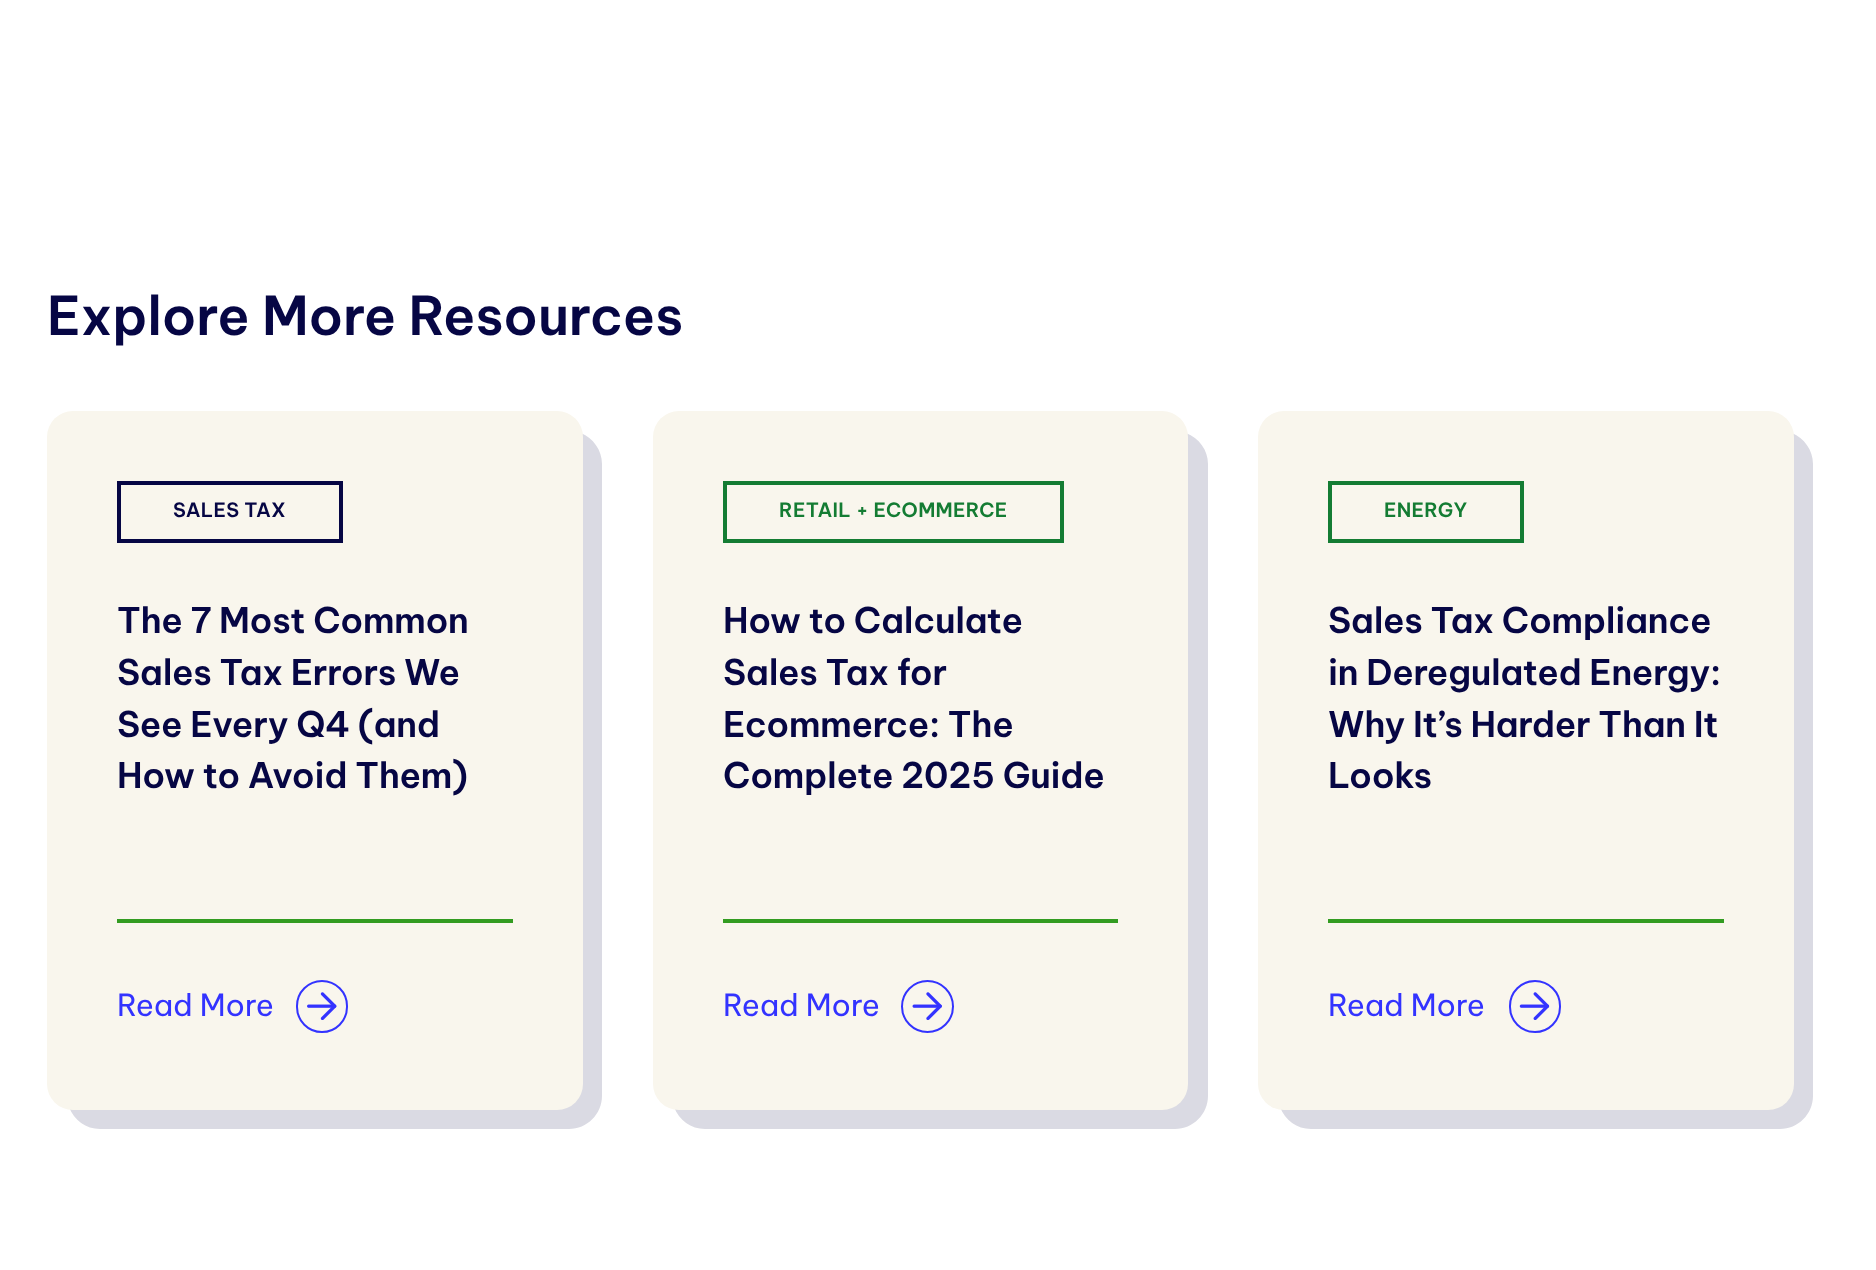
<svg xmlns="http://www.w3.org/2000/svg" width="1876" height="1270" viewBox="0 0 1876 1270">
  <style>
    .t1 { font: 600 53.25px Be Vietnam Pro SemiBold; fill: #060644; }
    .t2 { font: 600 19.6px Be Vietnam Pro SemiBold; letter-spacing: 0.3px; fill: #060644; }
    .t3 { font: 600 35.25px Be Vietnam Pro SemiBold; letter-spacing: -0.25px; fill: #060644; }
    .t4 { font: 30.25px Be Vietnam Pro; fill: #33f; }
    .t5 { font: 600 19.6px Be Vietnam Pro SemiBold; letter-spacing: 0.3px; fill: #147c33; }
  </style>
  <rect width="100%" height="100%" fill="#fff"/>
  <text x="47" y="335" class="t1">Explore More Resources</text>
  <path d="M69 1107C74 1120 86 1129 100 1129H569C587 1129 602 1114 602 1096V464C602 450 593 438 581 433C582 437 583 441 583 444V1076C583 1095 568 1110 550 1110H80C76 1110 73 1109 69 1107Z" fill="#dadae3"/>
  <rect x="47" y="411" width="536" height="699" rx="26" fill="#f9f6ed"/>
  <rect x="119" y="483" width="222" height="58" fill="none" stroke="#060644" stroke-width="4"/>
  <text x="173" y="517" class="t2">SALES TAX</text>
  <text x="117" y="633" class="t3">The 7 Most Common</text>
  <text x="117" y="685" class="t3">Sales Tax Errors We</text>
  <text x="117" y="737" class="t3">See Every Q4 (and</text>
  <text x="117" y="788" class="t3">How to Avoid Them)</text>
  <rect x="117" y="919" width="396" height="4" fill="#339c21"/>
  <text x="117" y="1016" class="t4">Read More</text>
  <rect x="297" y="981" width="50" height="51" rx="25" fill="none" stroke="#33f" stroke-width="2"/>
  <image x="307" y="992" width="30" height="28" href="images/1.png"/>
  <path d="M674 1107C679 1120 691 1129 705 1129H1175C1193 1129 1208 1114 1208 1096V464C1208 450 1199 438 1186 433C1188 437 1188 440 1188 444V1076C1188 1095 1173 1110 1155 1110H686C682 1110 678 1109 674 1107Z" fill="#dadae3"/>
  <rect x="653" y="411" width="535" height="699" rx="26" fill="#f9f6ed"/>
  <rect x="725" y="483" width="337" height="58" fill="none" stroke="#147c33" stroke-width="4"/>
  <text x="779" y="517" class="t5">RETAIL + ECOMMERCE</text>
  <text x="723" y="633" class="t3">How to Calculate</text>
  <text x="723" y="685" class="t3">Sales Tax for</text>
  <text x="723" y="737" class="t3">Ecommerce: The</text>
  <text x="723" y="788" class="t3">Complete 2025 Guide</text>
  <rect x="723" y="919" width="395" height="4" fill="#339c21"/>
  <text x="723" y="1016" class="t4">Read More</text>
  <circle cx="927.5" cy="1006.5" r="25.5" fill="none" stroke="#33f" stroke-width="2"/>
  <image x="912" y="992" width="30" height="28" href="images/2.png"/>
  <path d="M1280 1107C1285 1120 1297 1129 1311 1129H1780C1798 1129 1813 1114 1813 1096V464C1813 450 1804 438 1792 433C1793 437 1794 441 1794 444V1076C1794 1095 1779 1110 1760 1110H1292C1287 1110 1284 1109 1280 1107Z" fill="#dadae3"/>
  <rect x="1258" y="411" width="536" height="699" rx="26" fill="#f9f6ed"/>
  <rect x="1330" y="483" width="192" height="58" fill="none" stroke="#147c33" stroke-width="4"/>
  <text x="1384" y="517" class="t5">ENERGY</text>
  <text x="1328" y="633" class="t3">Sales Tax Compliance</text>
  <text x="1328" y="685" class="t3">in Deregulated Energy:</text>
  <text x="1328" y="737" class="t3">Why It’s Harder Than It</text>
  <text x="1328" y="788" class="t3">Looks</text>
  <rect x="1328" y="919" width="396" height="4" fill="#339c21"/>
  <text x="1328" y="1016" class="t4">Read More</text>
  <rect x="1510" y="981" width="50" height="51" rx="25" fill="none" stroke="#33f" stroke-width="2"/>
  <image x="1519" y="992" width="31" height="28" href="images/3.png"/>
</svg>
